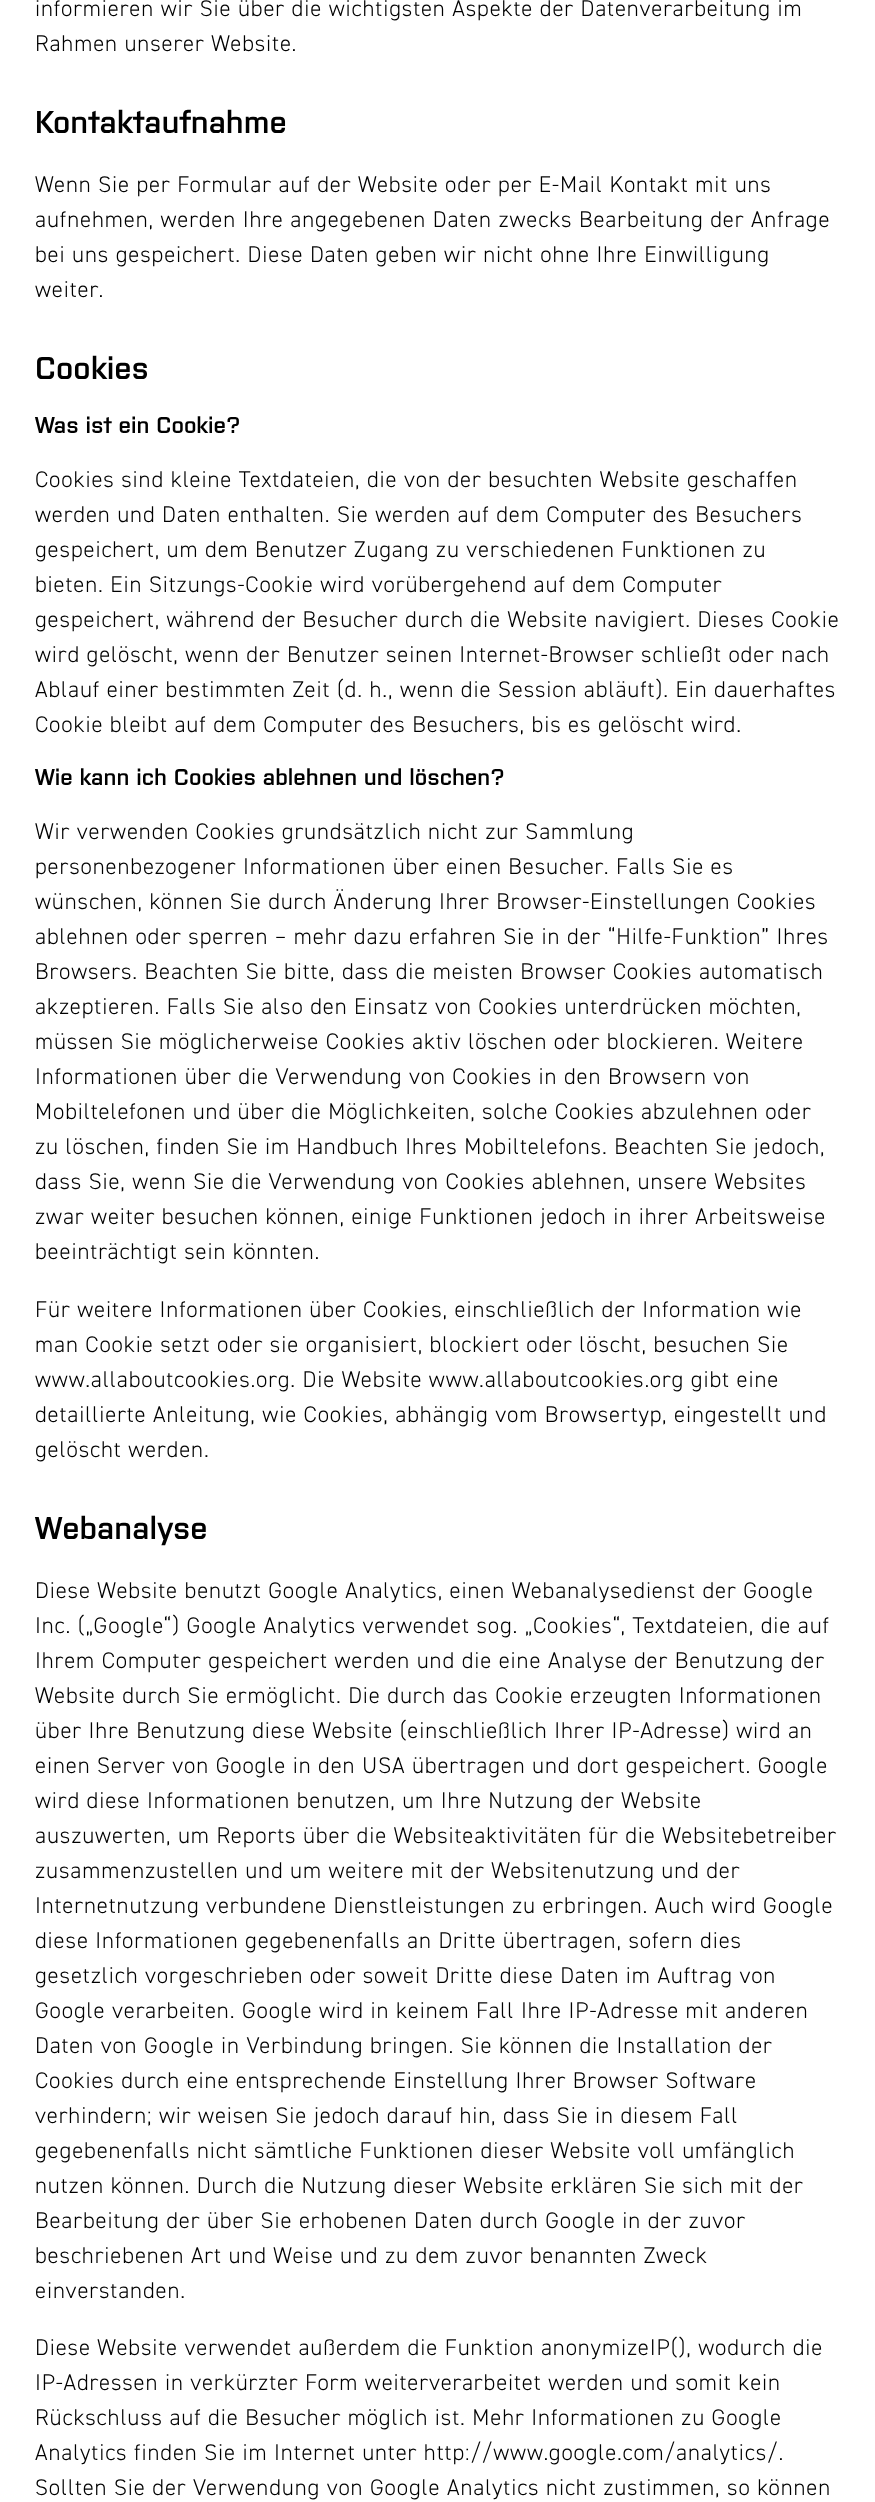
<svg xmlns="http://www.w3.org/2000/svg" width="875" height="2502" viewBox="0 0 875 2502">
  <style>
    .t1 { font: 300 22.75px 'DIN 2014'; letter-spacing: 0.88px; fill: #000; }
    .t2 { font: 600 31.5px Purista; fill: #000; }
    .t3 { font: 600 22.75px Purista; fill: #000; }
  </style>
  <rect width="100%" height="100%" fill="#fff"/>
  <text x="35" y="16" class="t1">informieren wir Sie über die wichtigsten Aspekte der Datenverarbeitung im</text>
  <text x="35" y="51" class="t1">Rahmen unserer Website.</text>
  <text x="35" y="133" class="t2">Kontaktaufnahme</text>
  <text x="35" y="192" class="t1">Wenn Sie per Formular auf der Website oder per E-Mail Kontakt mit uns</text>
  <text x="35" y="227" class="t1">aufnehmen, werden Ihre angegebenen Daten zwecks Bearbeitung der Anfrage</text>
  <text x="35" y="262" class="t1">bei uns gespeichert. Diese Daten geben wir nicht ohne Ihre Einwilligung</text>
  <text x="35" y="297" class="t1">weiter.</text>
  <text x="35" y="379" class="t2">Cookies</text>
  <text x="35" y="433" class="t3">Was ist ein Cookie?</text>
  <text x="35" y="487" class="t1">Cookies sind kleine Textdateien, die von der besuchten Website geschaffen</text>
  <text x="35" y="522" class="t1">werden und Daten enthalten. Sie werden auf dem Computer des Besuchers</text>
  <text x="35" y="557" class="t1">gespeichert, um dem Benutzer Zugang zu verschiedenen Funktionen zu</text>
  <text x="35" y="592" class="t1">bieten. Ein Sitzungs-Cookie wird vorübergehend auf dem Computer</text>
  <text x="35" y="627" class="t1">gespeichert, während der Besucher durch die Website navigiert. Dieses Cookie</text>
  <text x="35" y="662" class="t1">wird gelöscht, wenn der Benutzer seinen Internet-Browser schließt oder nach</text>
  <text x="35" y="697" class="t1">Ablauf einer bestimmten Zeit (d. h., wenn die Session abläuft). Ein dauerhaftes</text>
  <text x="35" y="732" class="t1">Cookie bleibt auf dem Computer des Besuchers, bis es gelöscht wird.</text>
  <text x="35" y="785" class="t3">Wie kann ich Cookies ablehnen und löschen?</text>
  <text x="35" y="839" class="t1">Wir verwenden Cookies grundsätzlich nicht zur Sammlung</text>
  <text x="35" y="874" class="t1">personenbezogener Informationen über einen Besucher. Falls Sie es</text>
  <text x="35" y="909" class="t1">wünschen, können Sie durch Änderung Ihrer Browser-Einstellungen Cookies</text>
  <text x="35" y="944" class="t1">ablehnen oder sperren – mehr dazu erfahren Sie in der “Hilfe-Funktion” Ihres</text>
  <text x="35" y="979" class="t1">Browsers. Beachten Sie bitte, dass die meisten Browser Cookies automatisch</text>
  <text x="35" y="1014" class="t1">akzeptieren. Falls Sie also den Einsatz von Cookies unterdrücken möchten,</text>
  <text x="35" y="1049" class="t1">müssen Sie möglicherweise Cookies aktiv löschen oder blockieren. Weitere</text>
  <text x="35" y="1084" class="t1">Informationen über die Verwendung von Cookies in den Browsern von</text>
  <text x="35" y="1119" class="t1">Mobiltelefonen und über die Möglichkeiten, solche Cookies abzulehnen oder</text>
  <text x="35" y="1154" class="t1">zu löschen, finden Sie im Handbuch Ihres Mobiltelefons. Beachten Sie jedoch,</text>
  <text x="35" y="1189" class="t1">dass Sie, wenn Sie die Verwendung von Cookies ablehnen, unsere Websites</text>
  <text x="35" y="1224" class="t1">zwar weiter besuchen können, einige Funktionen jedoch in ihrer Arbeitsweise</text>
  <text x="35" y="1259" class="t1">beeinträchtigt sein könnten.</text>
  <text x="35" y="1317" class="t1">Für weitere Informationen über Cookies, einschließlich der Information wie</text>
  <text x="35" y="1352" class="t1">man Cookie setzt oder sie organisiert, blockiert oder löscht, besuchen Sie</text>
  <text x="35" y="1387" class="t1">www.allaboutcookies.org. Die Website www.allaboutcookies.org gibt eine</text>
  <text x="35" y="1422" class="t1">detaillierte Anleitung, wie Cookies, abhängig vom Browsertyp, eingestellt und</text>
  <text x="35" y="1457" class="t1">gelöscht werden.</text>
  <text x="35" y="1539" class="t2">Webanalyse</text>
  <text x="35" y="1598" class="t1">Diese Website benutzt Google Analytics, einen Webanalysedienst der Google</text>
  <text x="35" y="1633" class="t1">Inc. („Google“) Google Analytics verwendet sog. „Cookies“, Textdateien, die auf</text>
  <text x="35" y="1668" class="t1">Ihrem Computer gespeichert werden und die eine Analyse der Benutzung der</text>
  <text x="35" y="1703" class="t1">Website durch Sie ermöglicht. Die durch das Cookie erzeugten Informationen</text>
  <text x="35" y="1738" class="t1">über Ihre Benutzung diese Website (einschließlich Ihrer IP-Adresse) wird an</text>
  <text x="35" y="1773" class="t1">einen Server von Google in den USA übertragen und dort gespeichert. Google</text>
  <text x="35" y="1808" class="t1">wird diese Informationen benutzen, um Ihre Nutzung der Website</text>
  <text x="35" y="1843" class="t1">auszuwerten, um Reports über die Websiteaktivitäten für die Websitebetreiber</text>
  <text x="35" y="1878" class="t1">zusammenzustellen und um weitere mit der Websitenutzung und der</text>
  <text x="35" y="1913" class="t1">Internetnutzung verbundene Dienstleistungen zu erbringen. Auch wird Google</text>
  <text x="35" y="1948" class="t1">diese Informationen gegebenenfalls an Dritte übertragen, sofern dies</text>
  <text x="35" y="1983" class="t1">gesetzlich vorgeschrieben oder soweit Dritte diese Daten im Auftrag von</text>
  <text x="35" y="2018" class="t1">Google verarbeiten. Google wird in keinem Fall Ihre IP-Adresse mit anderen</text>
  <text x="35" y="2053" class="t1">Daten von Google in Verbindung bringen. Sie können die Installation der</text>
  <text x="35" y="2088" class="t1">Cookies durch eine entsprechende Einstellung Ihrer Browser Software</text>
  <text x="35" y="2123" class="t1">verhindern; wir weisen Sie jedoch darauf hin, dass Sie in diesem Fall</text>
  <text x="35" y="2158" class="t1">gegebenenfalls nicht sämtliche Funktionen dieser Website voll umfänglich</text>
  <text x="35" y="2193" class="t1">nutzen können. Durch die Nutzung dieser Website erklären Sie sich mit der</text>
  <text x="35" y="2228" class="t1">Bearbeitung der über Sie erhobenen Daten durch Google in der zuvor</text>
  <text x="35" y="2263" class="t1">beschriebenen Art und Weise und zu dem zuvor benannten Zweck</text>
  <text x="35" y="2298" class="t1">einverstanden.</text>
  <text x="35" y="2355" class="t1">Diese Website verwendet außerdem die Funktion anonymizeIP(), wodurch die</text>
  <text x="35" y="2390" class="t1">IP-Adressen in verkürzter Form weiterverarbeitet werden und somit kein</text>
  <text x="35" y="2425" class="t1">Rückschluss auf die Besucher möglich ist. Mehr Informationen zu Google</text>
  <text x="35" y="2460" class="t1">Analytics finden Sie im Internet unter http://www.google.com/analytics/.</text>
  <text x="35" y="2495" class="t1">Sollten Sie der Verwendung von Google Analytics nicht zustimmen, so können</text>
</svg>
